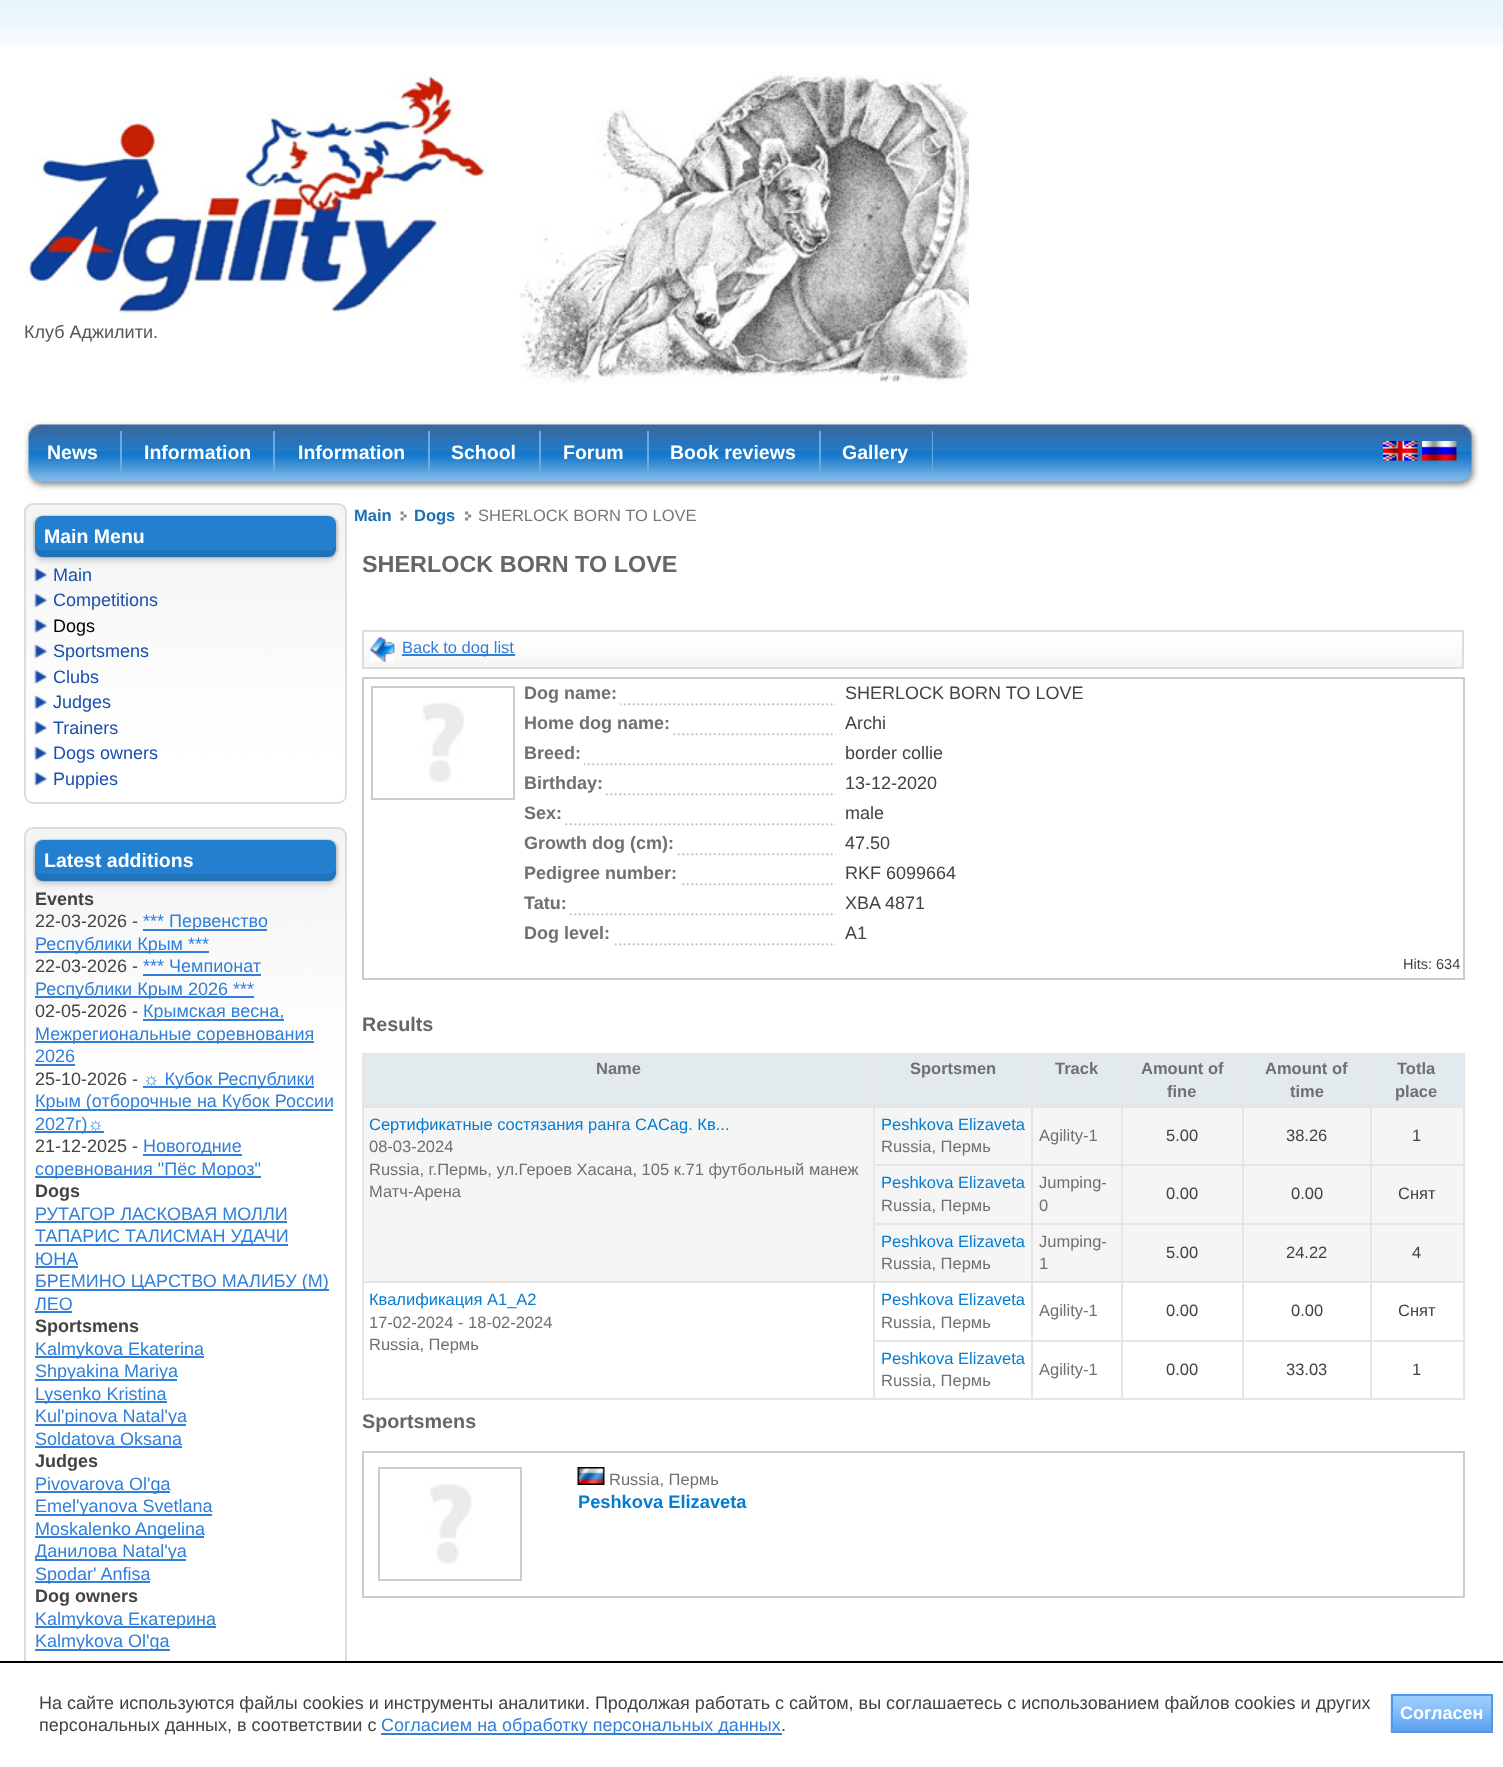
<svg xmlns="http://www.w3.org/2000/svg" width="1503" height="1767" viewBox="0 0 1503 1767">
  <style>
    .t1 { font: 18px Liberation Sans; fill: #555; }
    .t2 { font: bold 19.5px Liberation Sans; fill: #fff; }
    .t3 { font: 18px Liberation Sans; fill: #1950af; }
    .t4 { font: 18px Liberation Sans; fill: #000; }
    .t5 { font: bold 18px Liberation Sans; fill: #434343; }
    .t6 { font: 18px Liberation Sans; fill: #434343; }
    .t7 { font: 18px Liberation Sans; fill: #317fd9; }
    .t8 { font: bold 16.5px Liberation Sans; fill: #1a6fb7; }
    .t9 { font: 16.5px Liberation Sans; fill: #777; }
    .t10 { font: bold 23.4px Liberation Sans; fill: #666; }
    .t11 { font: 16.5px Liberation Sans; fill: #317fd9; }
    .t12 { font: bold 18px Liberation Sans; fill: #707070; }
    .t13 { font: 14.5px Liberation Sans; fill: #434343; }
    .t14 { font: bold 19.75px Liberation Sans; fill: #666; }
    .t15 { font: bold 16.5px Liberation Sans; fill: #707070; }
    .t16 { font: 16.5px Liberation Sans; fill: #047cd1; }
    .t17 { font: 16.5px Liberation Sans; fill: #707070; }
    .t18 { font: 16.5px Liberation Sans; fill: #434343; }
    .t19 { font: bold 18.25px Liberation Sans; fill: #047cd1; }
    .t20 { font: bold 18px Liberation Sans; fill: #fff; }
  </style>
  <rect width="100%" height="100%" fill="#fff"/>
  <image x="0" y="0" width="1503" height="47" href="images/1.png"/>
  <image x="25" y="71" width="463" height="242" href="images/2.png"/>
  <text x="24" y="338" class="t1">Клуб Аджилити.</text>
  <image x="519" y="72" width="450" height="312" href="images/3.png"/>
  <image x="24" y="420" width="1455" height="72" href="images/4.png"/>
  <rect x="120" y="431" width="2" height="45" fill="#66abe4"/>
  <text x="47" y="459" class="t2">News</text>
  <rect x="273" y="431" width="2" height="45" fill="#66abe4"/>
  <text x="144" y="459" class="t2">Information</text>
  <rect x="428" y="431" width="2" height="45" fill="#66abe4"/>
  <text x="298" y="459" class="t2">Information</text>
  <rect x="539" y="431" width="2" height="45" fill="#66abe4"/>
  <text x="451" y="459" class="t2">School</text>
  <rect x="647" y="431" width="2" height="45" fill="#66abe4"/>
  <text x="563" y="459" class="t2">Forum</text>
  <rect x="819" y="431" width="2" height="45" fill="#66abe4"/>
  <text x="670" y="459" class="t2">Book reviews</text>
  <rect x="932" y="431" width="1" height="45" fill="#66abe4"/>
  <text x="842" y="459" class="t2">Gallery</text>
  <image x="1383" y="441" width="35" height="20" href="images/5.png"/>
  <image x="1422" y="441" width="35" height="20" href="images/6.png"/>
  <image x="24" y="504" width="322" height="300" href="images/7.png"/>
  <rect x="25" y="504" width="321" height="299" rx="8" fill="none" stroke="#ddd" stroke-width="2"/>
  <rect x="35" y="519" width="301" height="41" rx="8" fill="#00000033" filter="blur(3px)"/>
  <rect x="34" y="516" width="303" height="41" rx="8" fill="none" stroke="#0000001a" stroke-width="2"/>
  <rect x="35" y="516" width="301" height="41" rx="8" fill="#2380d0"/>
  <path d="M35 546V549C35 553 39 557 43 557H328C332 557 336 553 336 549V543C336 547 333 550 328 550H42C39 550 36 549 35 546Z" fill="#0000001a"/>
  <text x="44" y="543" class="t2">Main Menu</text>
  <image x="34" y="568" width="13" height="15" href="images/8.png"/>
  <text x="53" y="581" class="t3">Main</text>
  <image x="34" y="593" width="13" height="15" href="images/9.png"/>
  <text x="53" y="606" class="t3">Competitions</text>
  <image x="34" y="619" width="13" height="15" href="images/10.png"/>
  <text x="53" y="632" class="t4">Dogs</text>
  <image x="34" y="644" width="13" height="15" href="images/11.png"/>
  <text x="53" y="657" class="t3">Sportsmens</text>
  <image x="34" y="670" width="13" height="15" href="images/12.png"/>
  <text x="53" y="683" class="t3">Clubs</text>
  <image x="34" y="695" width="13" height="15" href="images/13.png"/>
  <text x="53" y="708" class="t3">Judges</text>
  <image x="34" y="721" width="13" height="15" href="images/14.png"/>
  <text x="53" y="734" class="t3">Trainers</text>
  <image x="34" y="746" width="13" height="15" href="images/15.png"/>
  <text x="53" y="759" class="t3">Dogs owners</text>
  <image x="34" y="772" width="13" height="15" href="images/16.png"/>
  <text x="53" y="785" class="t3">Puppies</text>
  <image x="24" y="828" width="322" height="833" href="images/17.png"/>
  <rect x="25" y="828" width="321" height="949" rx="8" fill="none" stroke="#ddd" stroke-width="2"/>
  <rect x="35" y="843" width="301" height="41" rx="8" fill="#00000033" filter="blur(3px)"/>
  <rect x="34" y="840" width="303" height="41" rx="8" fill="none" stroke="#0000001a" stroke-width="2"/>
  <rect x="35" y="840" width="301" height="41" rx="8" fill="#2380d0"/>
  <path d="M35 870V873C35 877 39 881 43 881H328C332 881 336 877 336 873V867C336 871 333 874 328 874H42C39 874 36 873 35 870Z" fill="#0000001a"/>
  <text x="44" y="867" class="t2">Latest additions</text>
  <text x="35" y="905" class="t5">Events</text>
  <text x="35" y="927" class="t6">22-03-2026 -</text>
  <rect x="143" y="929" width="124" height="2" fill="#317fd9"/>
  <text x="143" y="927" class="t7">*** Первенство</text>
  <rect x="35" y="951" width="174" height="2" fill="#317fd9"/>
  <text x="35" y="950" class="t7">Республики Крым ***</text>
  <text x="35" y="972" class="t6">22-03-2026 -</text>
  <text x="143" y="972" class="t7">*** Чемпионат</text>
  <rect x="143" y="974" width="118" height="2" fill="#317fd9"/>
  <rect x="35" y="996" width="219" height="2" fill="#317fd9"/>
  <text x="35" y="995" class="t7">Республики Крым 2026 ***</text>
  <text x="35" y="1017" class="t6">02-05-2026 -</text>
  <rect x="143" y="1019" width="141" height="2" fill="#317fd9"/>
  <text x="143" y="1017" class="t7">Крымская весна,</text>
  <rect x="35" y="1041" width="279" height="2" fill="#317fd9"/>
  <text x="35" y="1040" class="t7">Межрегиональные соревнования</text>
  <text x="35" y="1062" class="t7">2026</text>
  <rect x="35" y="1064" width="40" height="2" fill="#317fd9"/>
  <text x="35" y="1085" class="t6">25-10-2026 -</text>
  <rect x="143" y="1086" width="171" height="2" fill="#317fd9"/>
  <text x="143" y="1085" class="t7">☼ Кубок Республики</text>
  <rect x="35" y="1109" width="298" height="2" fill="#317fd9"/>
  <text x="35" y="1107" class="t7">Крым (отборочные на Кубок России</text>
  <rect x="35" y="1131" width="69" height="2" fill="#317fd9"/>
  <text x="35" y="1130" class="t7">2027г)☼</text>
  <text x="35" y="1152" class="t6">21-12-2025 -</text>
  <rect x="143" y="1154" width="99" height="2" fill="#317fd9"/>
  <text x="143" y="1152" class="t7">Новогодние</text>
  <rect x="35" y="1176" width="226" height="2" fill="#317fd9"/>
  <text x="35" y="1175" class="t7">соревнования "Пёс Мороз"</text>
  <text x="35" y="1197" class="t5">Dogs</text>
  <text x="35" y="1220" class="t7">РУТАГОР ЛАСКОВАЯ МОЛЛИ</text>
  <rect x="35" y="1221" width="252" height="2" fill="#317fd9"/>
  <rect x="35" y="1244" width="253" height="2" fill="#317fd9"/>
  <text x="35" y="1242" class="t7">ТАПАРИС ТАЛИСМАН УДАЧИ</text>
  <text x="35" y="1265" class="t7">ЮНА</text>
  <rect x="35" y="1266" width="43" height="2" fill="#317fd9"/>
  <rect x="35" y="1289" width="294" height="2" fill="#317fd9"/>
  <text x="35" y="1287" class="t7">БРЕМИНО ЦАРСТВО МАЛИБУ (M)</text>
  <text x="35" y="1310" class="t7">ЛЕО</text>
  <rect x="35" y="1311" width="37" height="2" fill="#317fd9"/>
  <text x="35" y="1332" class="t5">Sportsmens</text>
  <rect x="35" y="1356" width="169" height="2" fill="#317fd9"/>
  <text x="35" y="1355" class="t7">Kalmykova Ekaterina</text>
  <rect x="35" y="1379" width="142" height="2" fill="#317fd9"/>
  <text x="35" y="1377" class="t7">Shpyakina Mariya</text>
  <rect x="35" y="1401" width="132" height="2" fill="#317fd9"/>
  <text x="35" y="1400" class="t7">Lysenko Kristina</text>
  <rect x="35" y="1424" width="151" height="2" fill="#317fd9"/>
  <text x="35" y="1422" class="t7">Kul'pinova Natal'ya</text>
  <text x="35" y="1445" class="t7">Soldatova Oksana</text>
  <rect x="35" y="1446" width="147" height="2" fill="#317fd9"/>
  <text x="35" y="1467" class="t5">Judges</text>
  <rect x="35" y="1491" width="135" height="2" fill="#317fd9"/>
  <text x="35" y="1490" class="t7">Pivovarova Ol'ga</text>
  <rect x="35" y="1514" width="177" height="2" fill="#317fd9"/>
  <text x="35" y="1512" class="t7">Emel'yanova Svetlana</text>
  <rect x="35" y="1536" width="169" height="2" fill="#317fd9"/>
  <text x="35" y="1535" class="t7">Moskalenko Angelina</text>
  <rect x="35" y="1559" width="151" height="2" fill="#317fd9"/>
  <text x="35" y="1557" class="t7">Данилова Natal'ya</text>
  <rect x="35" y="1581" width="115" height="2" fill="#317fd9"/>
  <text x="35" y="1580" class="t7">Spodar' Anfisa</text>
  <text x="35" y="1602" class="t5">Dog owners</text>
  <rect x="35" y="1626" width="181" height="2" fill="#317fd9"/>
  <text x="35" y="1625" class="t7">Kalmykova Екатерина</text>
  <rect x="35" y="1649" width="135" height="2" fill="#317fd9"/>
  <text x="35" y="1647" class="t7">Kalmykova Ol'ga</text>
  <text x="354" y="521" class="t8">Main</text>
  <image x="400" y="511" width="7" height="10" href="images/18.png"/>
  <text x="414" y="521" class="t8">Dogs</text>
  <image x="464" y="511" width="8" height="10" href="images/19.png"/>
  <text x="478" y="521" class="t9">SHERLOCK BORN TO LOVE</text>
  <text x="362" y="572" class="t10">SHERLOCK BORN TO LOVE</text>
  <image x="361" y="631" width="1101" height="38" href="images/20.png"/>
  <rect x="363" y="631" width="1100" height="37" fill="none" stroke="#ddd" stroke-width="2"/>
  <image x="370" y="637" width="25" height="25" href="images/21.png"/>
  <rect x="402" y="654" width="113" height="2" fill="#317fd9"/>
  <text x="402" y="653" class="t11">Back to dog list</text>
  <rect x="362" y="677" width="1102" height="2" fill="#ccc"/>
  <rect x="1463" y="677" width="2" height="303" fill="#ccc"/>
  <rect x="362" y="978" width="1102" height="2" fill="#ccc"/>
  <rect x="362" y="677" width="2" height="303" fill="#ccc"/>
  <rect x="372" y="687" width="142" height="112" fill="none" stroke="#ccc" stroke-width="2"/>
  <image x="422" y="702" width="42" height="81" href="images/22.png"/>
  <image x="620" y="703" width="216" height="3" href="images/23.png"/>
  <text x="524" y="699" class="t12">Dog name:</text>
  <text x="845" y="699" class="t6">SHERLOCK BORN TO LOVE</text>
  <image x="672" y="733" width="164" height="3" href="images/24.png"/>
  <text x="524" y="729" class="t12">Home dog name:</text>
  <text x="845" y="729" class="t6">Archi</text>
  <image x="584" y="763" width="252" height="3" href="images/25.png"/>
  <text x="524" y="759" class="t12">Breed:</text>
  <text x="845" y="759" class="t6">border collie</text>
  <image x="606" y="793" width="230" height="3" href="images/26.png"/>
  <text x="524" y="789" class="t12">Birthday:</text>
  <text x="845" y="789" class="t6">13-12-2020</text>
  <image x="564" y="823" width="272" height="3" href="images/27.png"/>
  <text x="524" y="819" class="t12">Sex:</text>
  <text x="845" y="819" class="t6">male</text>
  <image x="677" y="853" width="159" height="3" href="images/28.png"/>
  <text x="524" y="849" class="t12">Growth dog (cm):</text>
  <text x="845" y="849" class="t6">47.50</text>
  <image x="680" y="883" width="156" height="3" href="images/29.png"/>
  <text x="524" y="879" class="t12">Pedigree number:</text>
  <text x="845" y="879" class="t6">RKF 6099664</text>
  <image x="569" y="913" width="267" height="3" href="images/30.png"/>
  <text x="524" y="909" class="t12">Tatu:</text>
  <text x="845" y="909" class="t6">XBA 4871</text>
  <image x="612" y="943" width="224" height="3" href="images/31.png"/>
  <text x="524" y="939" class="t12">Dog level:</text>
  <text x="845" y="939" class="t6">A1</text>
  <text x="1403" y="969" class="t13">Hits: 634</text>
  <text x="362" y="1031" class="t14">Results</text>
  <rect x="364" y="1055" width="509" height="51" fill="#e2eaed"/>
  <rect x="1370" y="1053" width="94" height="2" fill="#e5e5e5"/>
  <rect x="1370" y="1106" width="94" height="2" fill="#e5e5e5"/>
  <rect x="364" y="1108" width="1099" height="173" fill="#f5f5f5"/>
  <rect x="1370" y="1164" width="94" height="2" fill="#e5e5e5"/>
  <rect x="1370" y="1223" width="94" height="2" fill="#e5e5e5"/>
  <rect x="1370" y="1281" width="94" height="2" fill="#e5e5e5"/>
  <rect x="1370" y="1340" width="94" height="2" fill="#e5e5e5"/>
  <rect x="1463" y="1340" width="2" height="60" fill="#e5e5e5"/>
  <rect x="1370" y="1398" width="94" height="2" fill="#e5e5e5"/>
  <rect x="1370" y="1340" width="2" height="60" fill="#e5e5e5"/>
  <rect x="1242" y="1340" width="129" height="2" fill="#e5e5e5"/>
  <rect x="1370" y="1281" width="2" height="60" fill="#e5e5e5"/>
  <rect x="1242" y="1281" width="129" height="2" fill="#e5e5e5"/>
  <rect x="1370" y="1223" width="2" height="60" fill="#e5e5e5"/>
  <rect x="1242" y="1223" width="129" height="2" fill="#e5e5e5"/>
  <rect x="1370" y="1164" width="2" height="60" fill="#e5e5e5"/>
  <rect x="1242" y="1164" width="129" height="2" fill="#e5e5e5"/>
  <rect x="1370" y="1106" width="2" height="60" fill="#e5e5e5"/>
  <rect x="1242" y="1106" width="129" height="2" fill="#e5e5e5"/>
  <rect x="1370" y="1053" width="2" height="54" fill="#e5e5e5"/>
  <rect x="1242" y="1053" width="129" height="2" fill="#e5e5e5"/>
  <rect x="1242" y="1398" width="129" height="2" fill="#e5e5e5"/>
  <rect x="1242" y="1340" width="2" height="60" fill="#e5e5e5"/>
  <rect x="1121" y="1340" width="123" height="2" fill="#e5e5e5"/>
  <rect x="1242" y="1281" width="2" height="60" fill="#e5e5e5"/>
  <rect x="1121" y="1281" width="123" height="2" fill="#e5e5e5"/>
  <rect x="1242" y="1223" width="2" height="60" fill="#e5e5e5"/>
  <rect x="1121" y="1223" width="123" height="2" fill="#e5e5e5"/>
  <rect x="1242" y="1164" width="2" height="60" fill="#e5e5e5"/>
  <rect x="1121" y="1164" width="123" height="2" fill="#e5e5e5"/>
  <rect x="1242" y="1106" width="2" height="60" fill="#e5e5e5"/>
  <rect x="1121" y="1106" width="123" height="2" fill="#e5e5e5"/>
  <rect x="1242" y="1053" width="2" height="54" fill="#e5e5e5"/>
  <rect x="1121" y="1053" width="123" height="2" fill="#e5e5e5"/>
  <rect x="1121" y="1398" width="123" height="2" fill="#e5e5e5"/>
  <rect x="1121" y="1340" width="2" height="60" fill="#e5e5e5"/>
  <rect x="1031" y="1340" width="91" height="2" fill="#e5e5e5"/>
  <rect x="1121" y="1281" width="2" height="60" fill="#e5e5e5"/>
  <rect x="1031" y="1281" width="91" height="2" fill="#e5e5e5"/>
  <rect x="1121" y="1223" width="2" height="60" fill="#e5e5e5"/>
  <rect x="1031" y="1223" width="91" height="2" fill="#e5e5e5"/>
  <rect x="1121" y="1164" width="2" height="60" fill="#e5e5e5"/>
  <rect x="1031" y="1164" width="91" height="2" fill="#e5e5e5"/>
  <rect x="1121" y="1106" width="2" height="60" fill="#e5e5e5"/>
  <rect x="1031" y="1106" width="91" height="2" fill="#e5e5e5"/>
  <rect x="1121" y="1053" width="2" height="54" fill="#e5e5e5"/>
  <rect x="1031" y="1053" width="91" height="2" fill="#e5e5e5"/>
  <rect x="1031" y="1398" width="91" height="2" fill="#e5e5e5"/>
  <rect x="1031" y="1340" width="2" height="60" fill="#e5e5e5"/>
  <rect x="873" y="1340" width="159" height="2" fill="#e5e5e5"/>
  <rect x="1031" y="1281" width="2" height="60" fill="#e5e5e5"/>
  <rect x="873" y="1281" width="159" height="2" fill="#e5e5e5"/>
  <rect x="1031" y="1223" width="2" height="60" fill="#e5e5e5"/>
  <rect x="873" y="1223" width="159" height="2" fill="#e5e5e5"/>
  <rect x="1031" y="1164" width="2" height="60" fill="#e5e5e5"/>
  <rect x="873" y="1164" width="159" height="2" fill="#e5e5e5"/>
  <rect x="1031" y="1106" width="2" height="60" fill="#e5e5e5"/>
  <rect x="873" y="1106" width="159" height="2" fill="#e5e5e5"/>
  <rect x="1031" y="1053" width="2" height="54" fill="#e5e5e5"/>
  <rect x="873" y="1053" width="159" height="2" fill="#e5e5e5"/>
  <rect x="873" y="1398" width="159" height="2" fill="#e5e5e5"/>
  <rect x="873" y="1340" width="2" height="60" fill="#e5e5e5"/>
  <rect x="873" y="1281" width="2" height="60" fill="#e5e5e5"/>
  <rect x="362" y="1281" width="513" height="2" fill="#e5e5e5"/>
  <rect x="873" y="1223" width="2" height="60" fill="#e5e5e5"/>
  <rect x="873" y="1164" width="2" height="60" fill="#e5e5e5"/>
  <rect x="873" y="1106" width="2" height="60" fill="#e5e5e5"/>
  <rect x="362" y="1106" width="513" height="2" fill="#e5e5e5"/>
  <rect x="873" y="1053" width="2" height="54" fill="#e5e5e5"/>
  <rect x="362" y="1053" width="513" height="2" fill="#e5e5e5"/>
  <rect x="362" y="1398" width="513" height="2" fill="#e5e5e5"/>
  <rect x="362" y="1281" width="2" height="119" fill="#e5e5e5"/>
  <rect x="362" y="1106" width="2" height="177" fill="#e5e5e5"/>
  <rect x="362" y="1053" width="2" height="54" fill="#e5e5e5"/>
  <text x="596" y="1074" class="t15">Name</text>
  <rect x="875" y="1055" width="156" height="51" fill="#e2eaed"/>
  <text x="910" y="1074" class="t15">Sportsmen</text>
  <rect x="1033" y="1055" width="88" height="51" fill="#e2eaed"/>
  <text x="1055" y="1074" class="t15">Track</text>
  <rect x="1123" y="1055" width="119" height="51" fill="#e2eaed"/>
  <text x="1141" y="1074" class="t15">Amount of</text>
  <text x="1167" y="1097" class="t15">fine</text>
  <rect x="1244" y="1055" width="126" height="51" fill="#e2eaed"/>
  <text x="1265" y="1074" class="t15">Amount of</text>
  <text x="1290" y="1097" class="t15">time</text>
  <rect x="1372" y="1055" width="91" height="51" fill="#e2eaed"/>
  <rect x="1463" y="1281" width="2" height="60" fill="#e5e5e5"/>
  <rect x="1463" y="1223" width="2" height="60" fill="#e5e5e5"/>
  <rect x="1463" y="1164" width="2" height="60" fill="#e5e5e5"/>
  <rect x="1463" y="1106" width="2" height="60" fill="#e5e5e5"/>
  <rect x="1463" y="1053" width="2" height="54" fill="#e5e5e5"/>
  <text x="1397" y="1074" class="t15">Totla</text>
  <text x="1395" y="1097" class="t15">place</text>
  <text x="369" y="1130" class="t16">Сертификатные состязания ранга CACag. Кв...</text>
  <text x="369" y="1152" class="t17">08-03-2024</text>
  <text x="369" y="1175" class="t17">Russia, г.Пермь, ул.Героев Хасана, 105 к.71 футбольный манеж</text>
  <text x="369" y="1197" class="t17">Матч-Арена</text>
  <text x="881" y="1130" class="t16">Peshkova Elizaveta</text>
  <text x="881" y="1152" class="t17">Russia, Пермь</text>
  <text x="1039" y="1141" class="t17">Agility-1</text>
  <text x="1166" y="1141" class="t18">5.00</text>
  <text x="1286" y="1141" class="t18">38.26</text>
  <text x="1412" y="1141" class="t18">1</text>
  <text x="881" y="1188" class="t16">Peshkova Elizaveta</text>
  <text x="881" y="1211" class="t17">Russia, Пермь</text>
  <text x="1039" y="1188" class="t17">Jumping-</text>
  <text x="1039" y="1211" class="t17">0</text>
  <text x="1166" y="1199" class="t18">0.00</text>
  <text x="1291" y="1199" class="t18">0.00</text>
  <text x="1398" y="1199" class="t18">Снят</text>
  <text x="881" y="1247" class="t16">Peshkova Elizaveta</text>
  <text x="881" y="1269" class="t17">Russia, Пермь</text>
  <text x="1039" y="1247" class="t17">Jumping-</text>
  <text x="1039" y="1269" class="t17">1</text>
  <text x="1166" y="1258" class="t18">5.00</text>
  <text x="1286" y="1258" class="t18">24.22</text>
  <text x="1412" y="1258" class="t18">4</text>
  <text x="369" y="1305" class="t16">Квалификация А1_А2</text>
  <text x="369" y="1328" class="t17">17-02-2024 - 18-02-2024</text>
  <text x="369" y="1350" class="t17">Russia, Пермь</text>
  <text x="881" y="1305" class="t16">Peshkova Elizaveta</text>
  <text x="881" y="1328" class="t17">Russia, Пермь</text>
  <text x="1039" y="1316" class="t17">Agility-1</text>
  <text x="1166" y="1316" class="t18">0.00</text>
  <text x="1291" y="1316" class="t18">0.00</text>
  <text x="1398" y="1316" class="t18">Снят</text>
  <text x="881" y="1364" class="t16">Peshkova Elizaveta</text>
  <text x="881" y="1386" class="t17">Russia, Пермь</text>
  <text x="1039" y="1375" class="t17">Agility-1</text>
  <text x="1166" y="1375" class="t18">0.00</text>
  <text x="1286" y="1375" class="t18">33.03</text>
  <text x="1412" y="1375" class="t18">1</text>
  <text x="362" y="1428" class="t14">Sportsmens</text>
  <rect x="362" y="1451" width="1102" height="2" fill="#ccc"/>
  <rect x="1463" y="1451" width="2" height="147" fill="#ccc"/>
  <rect x="362" y="1596" width="1102" height="2" fill="#ccc"/>
  <rect x="362" y="1451" width="2" height="147" fill="#ccc"/>
  <rect x="379" y="1468" width="142" height="112" fill="none" stroke="#ccc" stroke-width="2"/>
  <image x="430" y="1484" width="42" height="80" href="images/32.png"/>
  <image x="577" y="1467" width="28" height="18" href="images/33.png"/>
  <text x="609" y="1485" class="t17">Russia, Пермь</text>
  <text x="578" y="1508" class="t19">Peshkova Elizaveta</text>
  <rect x="24" y="1663" width="323" height="104" fill="#fff"/>
  <rect x="0" y="1661" width="1503" height="2" fill="#000"/>
  <text x="39" y="1709" class="t6">На сайте используются файлы cookies и инструменты аналитики. Продолжая работать с сайтом, вы соглашаетесь с использованием файлов cookies и других</text>
  <text x="39" y="1731" class="t6">персональных данных, в соответствии с</text>
  <rect x="381" y="1733" width="401" height="2" fill="#317fd9"/>
  <text x="381" y="1731" class="t7">Согласием на обработку персональных данных</text>
  <text x="781" y="1731" class="t6">.</text>
  <image x="1390" y="1695" width="101" height="38" href="images/34.png"/>
  <rect x="1392" y="1695" width="100" height="37" fill="none" stroke="#5098eb" stroke-width="2"/>
  <text x="1400" y="1719" class="t20">Согласен</text>
</svg>
